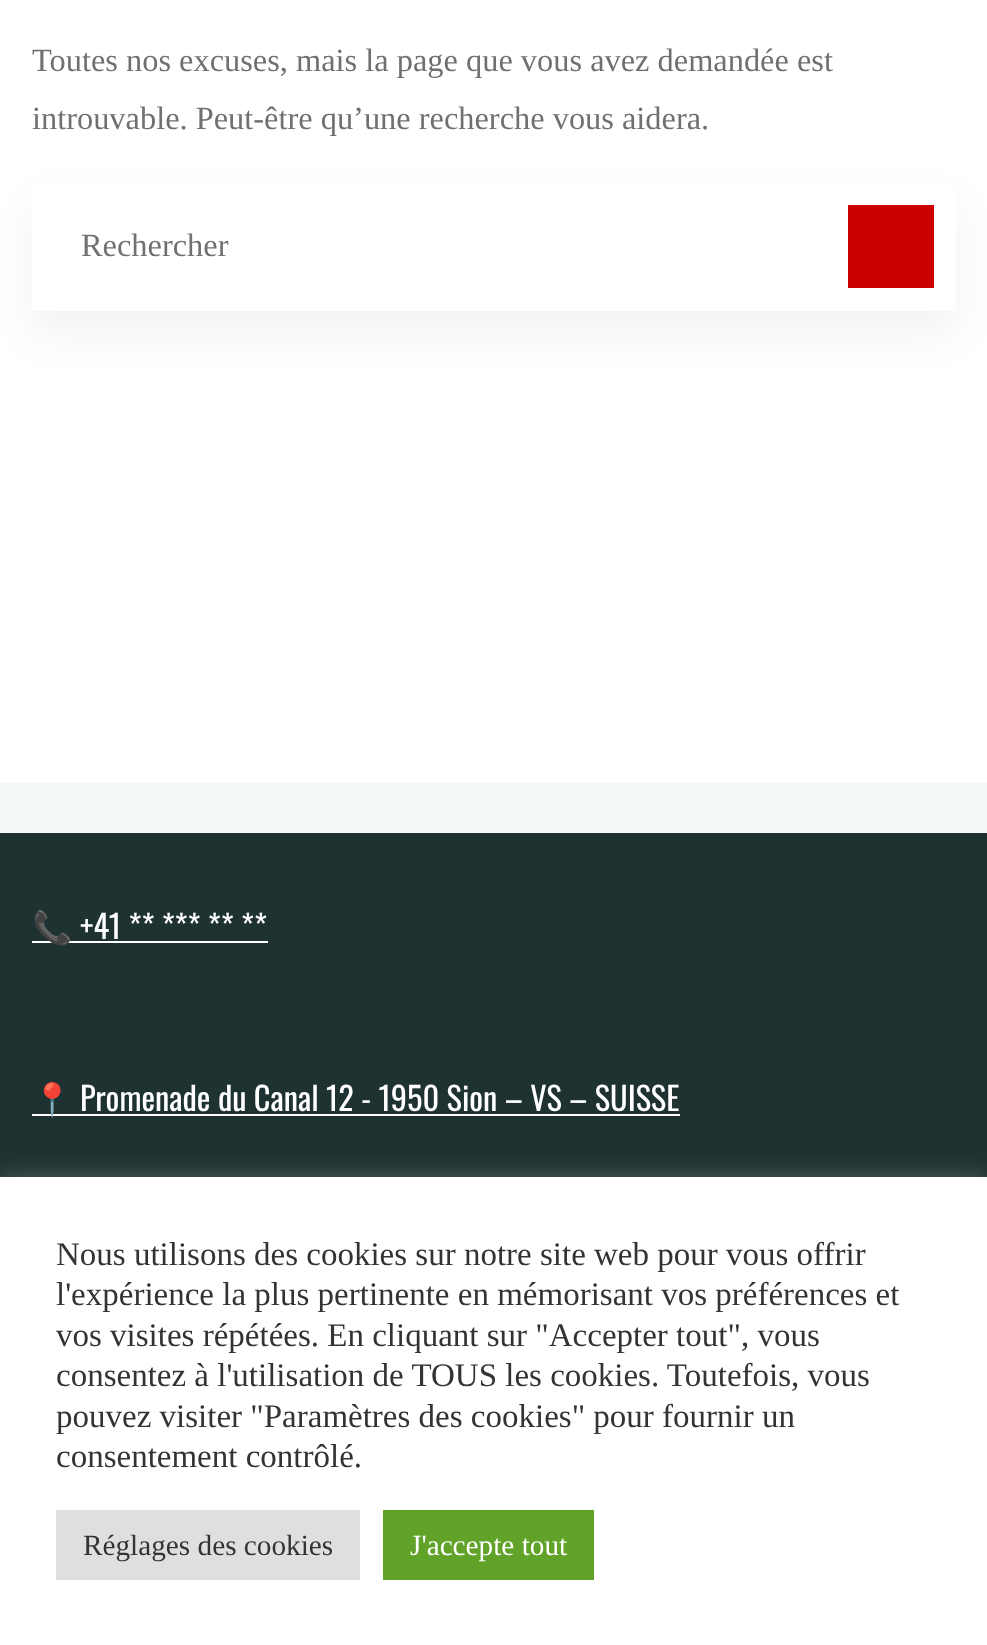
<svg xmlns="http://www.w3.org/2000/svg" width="987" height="1645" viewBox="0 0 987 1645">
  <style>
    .t1 { font: 32.4px Liberation Serif; fill: #707070; }
    .t2 { font: 32.4px Noto Color Emoji; fill: #fff; }
    .t3 { font: 32.4px Oswald; fill: #fff; }
    .t4 { font: 33px Liberation Serif; fill: #333; }
    .t5 { font: 29.25px Liberation Serif; fill: #333; }
    .t6 { font: 29.25px Liberation Serif; fill: #fff; }
  </style>
  <rect width="100%" height="100%" fill="#f3f7f6"/>
  <rect x="0" y="0" width="987" height="783" fill="#fff"/>
  <text x="32" y="71" class="t1">Toutes nos excuses, mais la page que vous avez demandée est</text>
  <text x="32" y="129" class="t1">introuvable. Peut-être qu’une recherche vous aidera.</text>
  <rect x="32" y="205" width="924" height="128" fill="#0000000d" filter="blur(22.5px)"/>
  <rect x="32" y="186" width="924" height="125" fill="#fff"/>
  <text x="81" y="256" class="t1">Rechercher</text>
  <rect x="848" y="205" width="86" height="83" fill="#c00"/>
  <rect x="0" y="833" width="987" height="344" fill="#1e3231"/>
  <rect x="32" y="941" width="236" height="2" fill="#fff"/>
  <text x="32" y="939" class="t2">📞</text>
  <text x="80" y="939" class="t3">+41 ** *** ** **</text>
  <rect x="32" y="1114" width="648" height="2" fill="#fff"/>
  <text x="32" y="1111" class="t2">📍</text>
  <text x="80" y="1111" class="t3">Promenade du Canal 12 - 1950 Sion – VS – SUISSE</text>
  <rect x="0" y="1175" width="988" height="470" fill="#acabab4d" filter="blur(11px)"/>
  <rect x="0" y="1177" width="987" height="468" fill="#fff"/>
  <text x="56" y="1265" class="t4">Nous utilisons des cookies sur notre site web pour vous offrir</text>
  <text x="56" y="1305" class="t4">l'expérience la plus pertinente en mémorisant vos préférences et</text>
  <text x="56" y="1346" class="t4">vos visites répétées. En cliquant sur "Accepter tout", vous</text>
  <text x="56" y="1386" class="t4">consentez à l'utilisation de TOUS les cookies. Toutefois, vous</text>
  <text x="56" y="1427" class="t4">pouvez visiter "Paramètres des cookies" pour fournir un</text>
  <text x="56" y="1467" class="t4">consentement contrôlé.</text>
  <rect x="56" y="1510" width="304" height="70" fill="#dedfe0"/>
  <text x="83" y="1555" class="t5">Réglages des cookies</text>
  <rect x="383" y="1510" width="211" height="70" fill="#61a229"/>
  <text x="410" y="1555" class="t6">J'accepte tout</text>
</svg>
